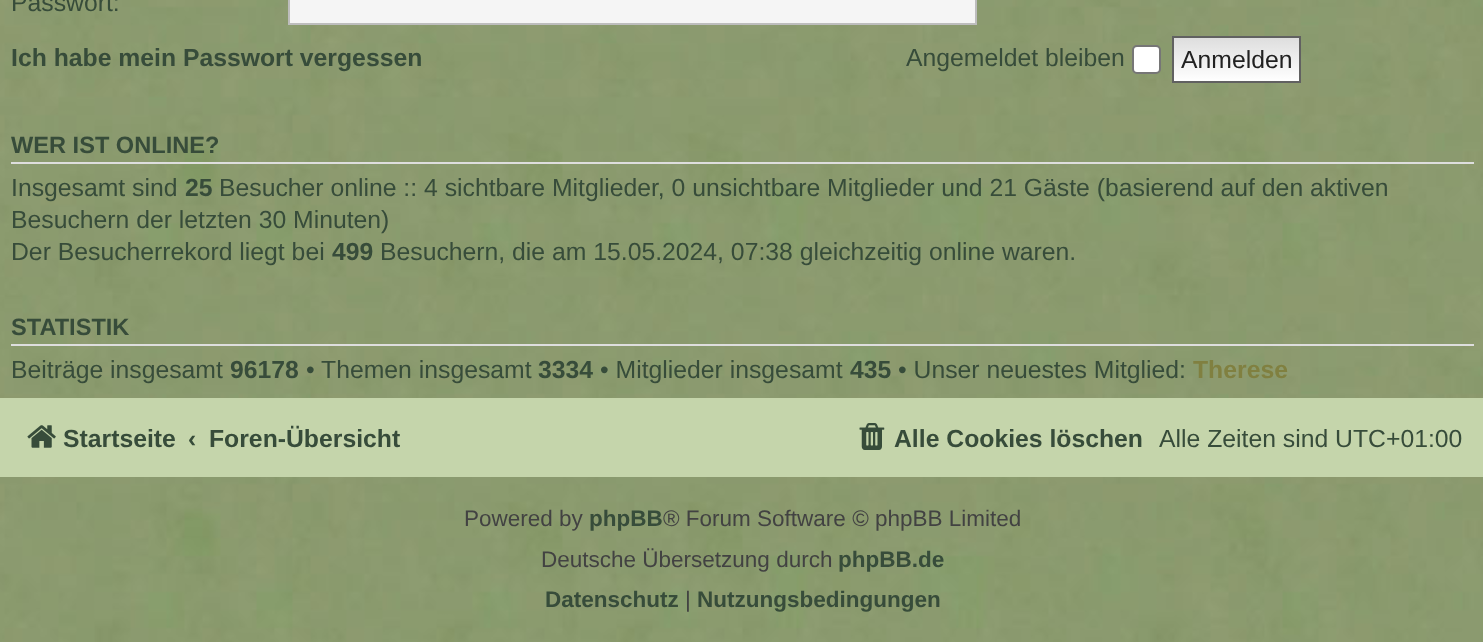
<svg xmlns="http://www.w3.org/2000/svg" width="1483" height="642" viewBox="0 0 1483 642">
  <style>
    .t1 { font: 24.75px Liberation Sans; fill: #374c3a; }
    .t2 { font: bold 24.75px Liberation Sans; fill: #374c3a; }
    .t3 { font: 24.75px Liberation Sans; fill: #212121; }
    .t4 { font: bold 23.6px Liberation Sans; fill: #374c3a; }
    .t5 { font: bold 24.75px Liberation Sans; fill: #808040; }
    .t6 { font: 22.5px Liberation Sans; fill: #424242; }
    .t7 { font: bold 22.5px Liberation Sans; fill: #374c3a; }
  </style>
  <defs>
    <linearGradient id="g1" gradientUnits="userSpaceOnUse" x1="1236" y1="38" x2="1236" y2="81"><stop offset="0" stop-color="#dedede"/><stop offset="1" stop-color="#fff"/></linearGradient>
  </defs>
  <rect width="100%" height="100%" fill="#fff"/>
  <image x="0" y="0" width="1483" height="642" href="images/1.png"/>
  <text x="11" y="11" class="t1">Passwort:</text>
  <rect x="289" y="-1" width="687" height="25" fill="#f5f5f5" stroke="#bdbdbd" stroke-width="2"/>
  <text x="11" y="66" class="t2">Ich habe mein Passwort vergessen</text>
  <text x="906" y="66" class="t1">Angemeldet bleiben</text>
  <rect x="1133" y="46" width="27" height="27" rx="4" fill="#fff" stroke="#767676" stroke-width="2"/>
  <rect x="1174" y="38" width="125" height="43" fill="url(#g1)"/>
  <rect x="1173" y="37" width="127" height="45" fill="none" stroke="#616161" stroke-width="2"/>
  <text x="1181" y="68" class="t3">Anmelden</text>
  <rect x="11" y="162" width="1463" height="2" fill="#dedede"/>
  <text x="11" y="153" class="t4">WER IST ONLINE?</text>
  <text x="11" y="196" class="t1">Insgesamt sind</text>
  <text x="185" y="196" class="t2">25</text>
  <text x="219" y="196" class="t1">Besucher online :: 4 sichtbare Mitglieder, 0 unsichtbare Mitglieder und 21 Gäste (basierend auf den aktiven</text>
  <text x="11" y="228" class="t1">Besuchern der letzten 30 Minuten)</text>
  <text x="11" y="260" class="t1">Der Besucherrekord liegt bei</text>
  <text x="332" y="260" class="t2">499</text>
  <text x="380" y="260" class="t1">Besuchern, die am 15.05.2024, 07:38 gleichzeitig online waren.</text>
  <rect x="11" y="344" width="1463" height="2" fill="#dedede"/>
  <text x="11" y="335" class="t4">STATISTIK</text>
  <text x="11" y="378" class="t1">Beiträge insgesamt</text>
  <text x="230" y="378" class="t2">96178</text>
  <text x="306" y="378" class="t1">• Themen insgesamt</text>
  <text x="538" y="378" class="t2">3334</text>
  <text x="600" y="378" class="t1">• Mitglieder insgesamt</text>
  <text x="850" y="378" class="t2">435</text>
  <text x="898" y="378" class="t1">• Unser neuestes Mitglied:</text>
  <text x="1193" y="378" class="t5">Therese</text>
  <rect x="0" y="398" width="1483" height="79" fill="#c5d5ab"/>
  <image x="27" y="425" width="29" height="23" href="images/2.png"/>
  <text x="63" y="447" class="t2">Startseite</text>
  <text x="188" y="447" class="t2">‹</text>
  <text x="209" y="447" class="t2">Foren-Übersicht</text>
  <image x="859" y="423" width="26" height="27" href="images/3.png"/>
  <text x="894" y="447" class="t2">Alle Cookies löschen</text>
  <text x="1159" y="447" class="t1">Alle Zeiten sind UTC+01:00</text>
  <text x="464" y="526" class="t6">Powered by</text>
  <text x="589" y="526" class="t7">phpBB</text>
  <text x="663" y="526" class="t6">® Forum Software © phpBB Limited</text>
  <text x="541" y="567" class="t6">Deutsche Übersetzung durch</text>
  <text x="838" y="567" class="t7">phpBB.de</text>
  <text x="545" y="607" class="t7">Datenschutz</text>
  <text x="685" y="607" class="t6">|</text>
  <text x="697" y="607" class="t7">Nutzungsbedingungen</text>
</svg>
